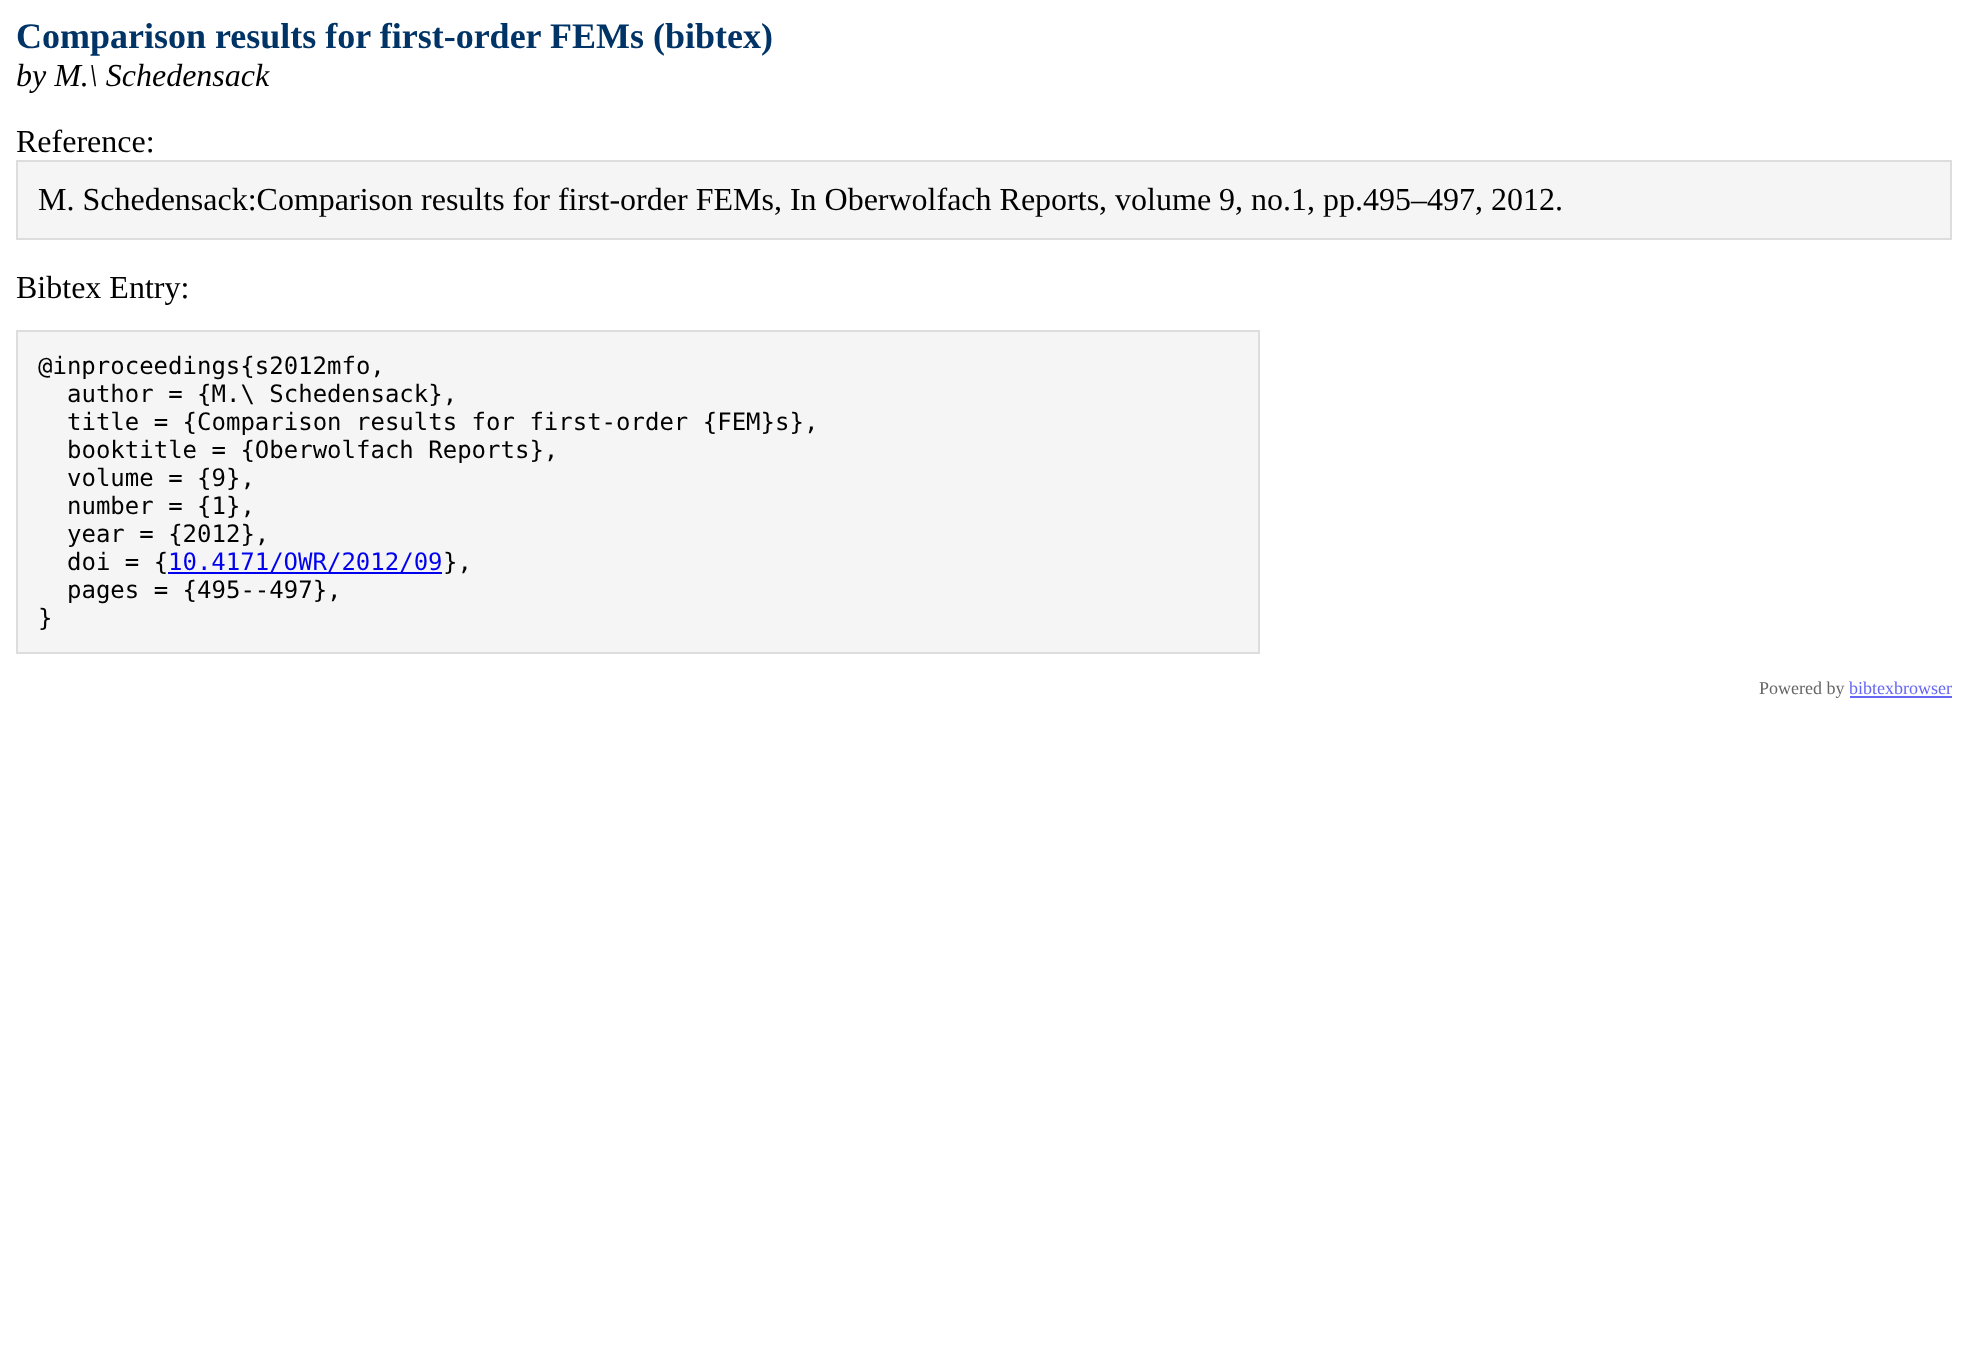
<svg xmlns="http://www.w3.org/2000/svg" width="1968" height="1352" viewBox="0 0 1968 1352">
  <style>
    .t1 { font: bold 36px Liberation Serif; fill: #036; }
    .t2 { font: italic 32px Liberation Serif; fill: #000; }
    .t3 { font: 32px Liberation Serif; fill: #000; }
    .t4 { font: 24px DejaVu Sans Mono; fill: #000; }
    .t5 { font: 24px DejaVu Sans Mono; fill: #00e; }
    .t6 { font: 18px Liberation Serif; fill: #666; }
    .t7 { font: 18px Liberation Serif; fill: #6666f5; }
  </style>
  <rect width="100%" height="100%" fill="#fff"/>
  <text x="16" y="48" class="t1">Comparison results for first-order FEMs (bibtex)</text>
  <text x="16" y="86" class="t2">by M.\ Schedensack</text>
  <text x="16" y="152" class="t3">Reference:</text>
  <rect x="17" y="161" width="1934" height="78" fill="#f5f5f5" stroke="#ddd" stroke-width="2"/>
  <text x="38" y="210" class="t3">M. Schedensack:Comparison results for first-order FEMs, In Oberwolfach Reports, volume 9, no.1, pp.495–497, 2012.</text>
  <text x="16" y="298" class="t3">Bibtex Entry:</text>
  <rect x="17" y="331" width="1242" height="322" fill="#f5f5f5" stroke="#ddd" stroke-width="2"/>
  <text x="38" y="374" class="t4">@inproceedings{s2012mfo,</text>
  <text x="67" y="402" class="t4">author = {M.\ Schedensack},</text>
  <text x="67" y="430" class="t4">title = {Comparison results for first-order {FEM}s},</text>
  <text x="67" y="458" class="t4">booktitle = {Oberwolfach Reports},</text>
  <text x="67" y="486" class="t4">volume = {9},</text>
  <text x="67" y="514" class="t4">number = {1},</text>
  <text x="67" y="542" class="t4">year = {2012},</text>
  <text x="67" y="570" class="t4">doi = {</text>
  <rect x="168" y="572" width="274" height="2" fill="#00e"/>
  <text x="168" y="570" class="t5">10.4171/OWR/2012/09</text>
  <text x="443" y="570" class="t4">},</text>
  <text x="67" y="598" class="t4">pages = {495--497},</text>
  <text x="38" y="626" class="t4">}</text>
  <text x="1759" y="694" class="t6">Powered by</text>
  <text x="1849" y="694" class="t7">bibtexbrowser</text>
  <rect x="1850" y="696" width="102" height="2" fill="#6666f5"/>
</svg>
